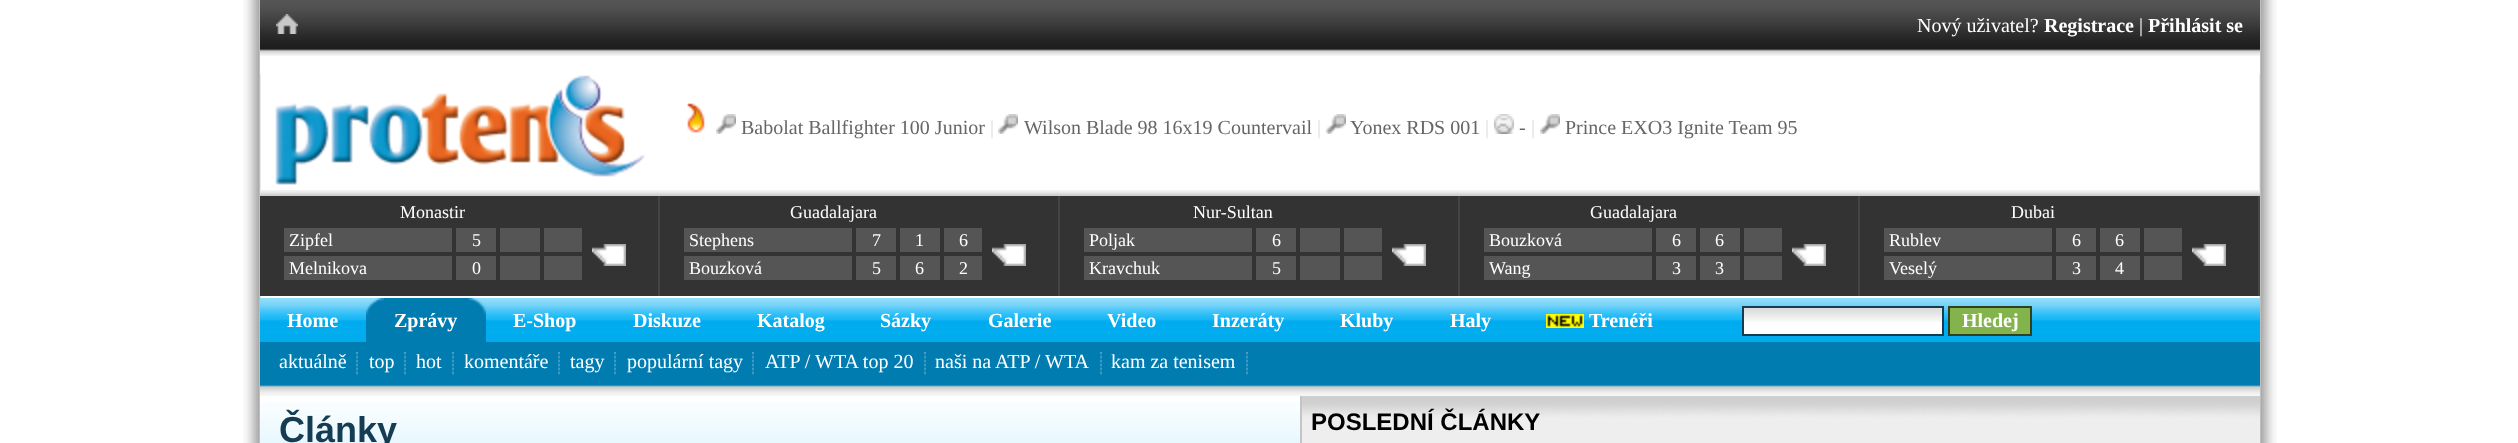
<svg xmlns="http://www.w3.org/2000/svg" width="2518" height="443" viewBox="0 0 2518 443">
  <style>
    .t1 { font: 20px Liberation Serif; fill: #fff; }
    .t2 { font: bold 20px Liberation Serif; fill: #fff; }
    .t3 { font: 20px Liberation Serif; fill: #666; }
    .t4 { font: 20px Liberation Serif; fill: #ddd; }
    .t5 { font: 18px Liberation Serif; fill: #fff; }
    .t6 { font: bold 36px Liberation Sans; fill: #143c53; }
    .t7 { font: bold 24px Liberation Sans; fill: #000; }
  </style>
  <rect width="100%" height="100%" fill="#fff"/>
  <image x="243" y="0" width="2034" height="443" href="images/1.png"/>
  <image x="316" y="0" width="944" height="56" href="images/2.png"/>
  <rect x="260" y="56" width="1" height="18" fill="#fff"/>
  <image x="260" y="0" width="56" height="56" href="images/3.png"/>
  <image x="276" y="14" width="22" height="20" href="images/4.png"/>
  <image x="1260" y="0" width="642" height="56" href="images/5.png"/>
  <rect x="2259" y="56" width="1" height="18" fill="#fff"/>
  <image x="1902" y="0" width="358" height="56" href="images/6.png"/>
  <text x="1917" y="32" class="t1">Nový uživatel?</text>
  <text x="2044" y="32" class="t2">Registrace</text>
  <text x="2139" y="32" class="t1">|</text>
  <text x="2148" y="32" class="t2">Přihlásit se</text>
  <image x="275" y="75" width="370" height="110" href="images/7.png"/>
  <image x="687" y="103" width="18" height="30" href="images/8.png"/>
  <image x="716" y="114" width="20" height="20" href="images/9.png"/>
  <text x="741" y="134" class="t3">Babolat Ballfighter 100 Junior</text>
  <text x="990" y="134" class="t4">|</text>
  <image x="998" y="114" width="20" height="20" href="images/9.png"/>
  <text x="1024" y="134" class="t3">Wilson Blade 98 16x19 Countervail</text>
  <text x="1317" y="134" class="t4">|</text>
  <image x="1326" y="114" width="20" height="20" href="images/9.png"/>
  <text x="1350" y="134" class="t3">Yonex RDS 001</text>
  <text x="1485" y="134" class="t4">|</text>
  <image x="1494" y="114" width="20" height="20" href="images/10.png"/>
  <text x="1519" y="134" class="t3">-</text>
  <text x="1531" y="134" class="t4">|</text>
  <image x="1540" y="114" width="20" height="20" href="images/9.png"/>
  <text x="1565" y="134" class="t3">Prince EXO3 Ignite Team 95</text>
  <image x="260" y="190" width="2000" height="6" href="images/11.png"/>
  <rect x="260" y="196" width="398" height="100" fill="#333"/>
  <rect x="658" y="196" width="2" height="100" fill="#444"/>
  <text x="400" y="218" class="t5">Monastir</text>
  <rect x="284" y="228" width="168" height="24" fill="#555"/>
  <text x="289" y="246" class="t5">Zipfel</text>
  <rect x="456" y="228" width="40" height="24" fill="#555"/>
  <text x="472" y="246" class="t5">5</text>
  <rect x="500" y="228" width="40" height="24" fill="#555"/>
  <rect x="544" y="228" width="38" height="24" fill="#555"/>
  <image x="592" y="244" width="34" height="22" href="images/12.png"/>
  <rect x="284" y="256" width="168" height="24" fill="#555"/>
  <text x="289" y="274" class="t5">Melnikova</text>
  <rect x="456" y="256" width="40" height="24" fill="#555"/>
  <text x="472" y="274" class="t5">0</text>
  <rect x="500" y="256" width="40" height="24" fill="#555"/>
  <rect x="544" y="256" width="38" height="24" fill="#555"/>
  <rect x="660" y="196" width="398" height="100" fill="#333"/>
  <rect x="1058" y="196" width="2" height="100" fill="#444"/>
  <text x="790" y="218" class="t5">Guadalajara</text>
  <rect x="684" y="228" width="168" height="24" fill="#555"/>
  <text x="689" y="246" class="t5">Stephens</text>
  <rect x="856" y="228" width="40" height="24" fill="#555"/>
  <text x="872" y="246" class="t5">7</text>
  <rect x="900" y="228" width="40" height="24" fill="#555"/>
  <text x="915" y="246" class="t5">1</text>
  <rect x="944" y="228" width="38" height="24" fill="#555"/>
  <text x="959" y="246" class="t5">6</text>
  <image x="992" y="244" width="34" height="22" href="images/12.png"/>
  <rect x="684" y="256" width="168" height="24" fill="#555"/>
  <text x="689" y="274" class="t5">Bouzková</text>
  <rect x="856" y="256" width="40" height="24" fill="#555"/>
  <text x="872" y="274" class="t5">5</text>
  <rect x="900" y="256" width="40" height="24" fill="#555"/>
  <text x="915" y="274" class="t5">6</text>
  <rect x="944" y="256" width="38" height="24" fill="#555"/>
  <text x="959" y="274" class="t5">2</text>
  <rect x="1060" y="196" width="398" height="100" fill="#333"/>
  <rect x="1458" y="196" width="2" height="100" fill="#444"/>
  <text x="1193" y="218" class="t5">Nur-Sultan</text>
  <rect x="1084" y="228" width="168" height="24" fill="#555"/>
  <text x="1089" y="246" class="t5">Poljak</text>
  <rect x="1256" y="228" width="40" height="24" fill="#555"/>
  <text x="1272" y="246" class="t5">6</text>
  <rect x="1300" y="228" width="40" height="24" fill="#555"/>
  <rect x="1344" y="228" width="38" height="24" fill="#555"/>
  <image x="1392" y="244" width="34" height="22" href="images/12.png"/>
  <rect x="1084" y="256" width="168" height="24" fill="#555"/>
  <text x="1089" y="274" class="t5">Kravchuk</text>
  <rect x="1256" y="256" width="40" height="24" fill="#555"/>
  <text x="1272" y="274" class="t5">5</text>
  <rect x="1300" y="256" width="40" height="24" fill="#555"/>
  <rect x="1344" y="256" width="38" height="24" fill="#555"/>
  <rect x="1460" y="196" width="398" height="100" fill="#333"/>
  <rect x="1858" y="196" width="2" height="100" fill="#444"/>
  <text x="1590" y="218" class="t5">Guadalajara</text>
  <rect x="1484" y="228" width="168" height="24" fill="#555"/>
  <text x="1489" y="246" class="t5">Bouzková</text>
  <rect x="1656" y="228" width="40" height="24" fill="#555"/>
  <text x="1672" y="246" class="t5">6</text>
  <rect x="1700" y="228" width="40" height="24" fill="#555"/>
  <text x="1715" y="246" class="t5">6</text>
  <rect x="1744" y="228" width="38" height="24" fill="#555"/>
  <image x="1792" y="244" width="34" height="22" href="images/12.png"/>
  <rect x="1484" y="256" width="168" height="24" fill="#555"/>
  <text x="1489" y="274" class="t5">Wang</text>
  <rect x="1656" y="256" width="40" height="24" fill="#555"/>
  <text x="1672" y="274" class="t5">3</text>
  <rect x="1700" y="256" width="40" height="24" fill="#555"/>
  <text x="1715" y="274" class="t5">3</text>
  <rect x="1744" y="256" width="38" height="24" fill="#555"/>
  <rect x="1860" y="196" width="398" height="100" fill="#333"/>
  <rect x="2258" y="196" width="2" height="100" fill="#444"/>
  <text x="2011" y="218" class="t5">Dubai</text>
  <rect x="1884" y="228" width="168" height="24" fill="#555"/>
  <text x="1889" y="246" class="t5">Rublev</text>
  <rect x="2056" y="228" width="40" height="24" fill="#555"/>
  <text x="2072" y="246" class="t5">6</text>
  <rect x="2100" y="228" width="40" height="24" fill="#555"/>
  <text x="2115" y="246" class="t5">6</text>
  <rect x="2144" y="228" width="38" height="24" fill="#555"/>
  <image x="2192" y="244" width="34" height="22" href="images/12.png"/>
  <rect x="1884" y="256" width="168" height="24" fill="#555"/>
  <text x="1889" y="274" class="t5">Veselý</text>
  <rect x="2056" y="256" width="40" height="24" fill="#555"/>
  <text x="2072" y="274" class="t5">3</text>
  <rect x="2100" y="256" width="40" height="24" fill="#555"/>
  <text x="2115" y="274" class="t5">4</text>
  <rect x="2144" y="256" width="38" height="24" fill="#555"/>
  <image x="260" y="298" width="2000" height="44" href="images/13.png"/>
  <text x="287" y="327" class="t2">Home</text>
  <image x="366" y="298" width="18" height="44" href="images/14.png"/>
  <rect x="384" y="298" width="84" height="44" fill="#017cb1"/>
  <text x="394" y="327" class="t2">Zprávy</text>
  <image x="468" y="298" width="18" height="44" href="images/15.png"/>
  <text x="513" y="327" class="t2">E-Shop</text>
  <text x="633" y="327" class="t2">Diskuze</text>
  <text x="757" y="327" class="t2">Katalog</text>
  <text x="880" y="327" class="t2">Sázky</text>
  <text x="988" y="327" class="t2">Galerie</text>
  <text x="1107" y="327" class="t2">Video</text>
  <text x="1212" y="327" class="t2">Inzeráty</text>
  <text x="1340" y="327" class="t2">Kluby</text>
  <text x="1450" y="327" class="t2">Haly</text>
  <image x="1546" y="314" width="38" height="14" href="images/16.png"/>
  <text x="1589" y="327" class="t2">Trenéři</text>
  <rect x="1744" y="322" width="198" height="12" fill="#fff"/>
  <image x="1744" y="308" width="198" height="14" href="images/17.png"/>
  <rect x="1743" y="307" width="200" height="28" fill="none" stroke="#143c53" stroke-width="2"/>
  <rect x="1949" y="307" width="82" height="28" fill="#83b44c" stroke="#31411f" stroke-width="2"/>
  <text x="1962" y="327" class="t2">Hledej</text>
  <rect x="260" y="342" width="2000" height="43" fill="#017cb1"/>
  <image x="260" y="385" width="2000" height="11" href="images/18.png"/>
  <text x="279" y="368" class="t1">aktuálně</text>
  <image x="356" y="352" width="2" height="23" href="images/19.png"/>
  <text x="369" y="368" class="t1">top</text>
  <image x="404" y="352" width="2" height="23" href="images/19.png"/>
  <text x="416" y="368" class="t1">hot</text>
  <image x="452" y="352" width="2" height="23" href="images/19.png"/>
  <text x="464" y="368" class="t1">komentáře</text>
  <image x="558" y="352" width="2" height="23" href="images/19.png"/>
  <text x="570" y="368" class="t1">tagy</text>
  <image x="614" y="352" width="2" height="23" href="images/19.png"/>
  <text x="627" y="368" class="t1">populární tagy</text>
  <image x="752" y="352" width="2" height="23" href="images/19.png"/>
  <text x="765" y="368" class="t1">ATP / WTA top 20</text>
  <image x="924" y="352" width="2" height="23" href="images/19.png"/>
  <text x="935" y="368" class="t1">naši na ATP / WTA</text>
  <image x="1100" y="352" width="2" height="23" href="images/19.png"/>
  <text x="1111" y="368" class="t1">kam za tenisem</text>
  <image x="1246" y="352" width="2" height="23" href="images/19.png"/>
  <rect x="260" y="396" width="1" height="6" fill="#fefefe"/>
  <image x="260" y="402" width="1040" height="41" href="images/20.png"/>
  <text x="279" y="442" class="t6">Články</text>
  <image x="1302" y="396" width="958" height="47" href="images/21.png"/>
  <rect x="1300" y="396" width="2" height="47" fill="#c5c3c3"/>
  <text x="1311" y="430" class="t7">POSLEDNÍ ČLÁNKY</text>
</svg>
